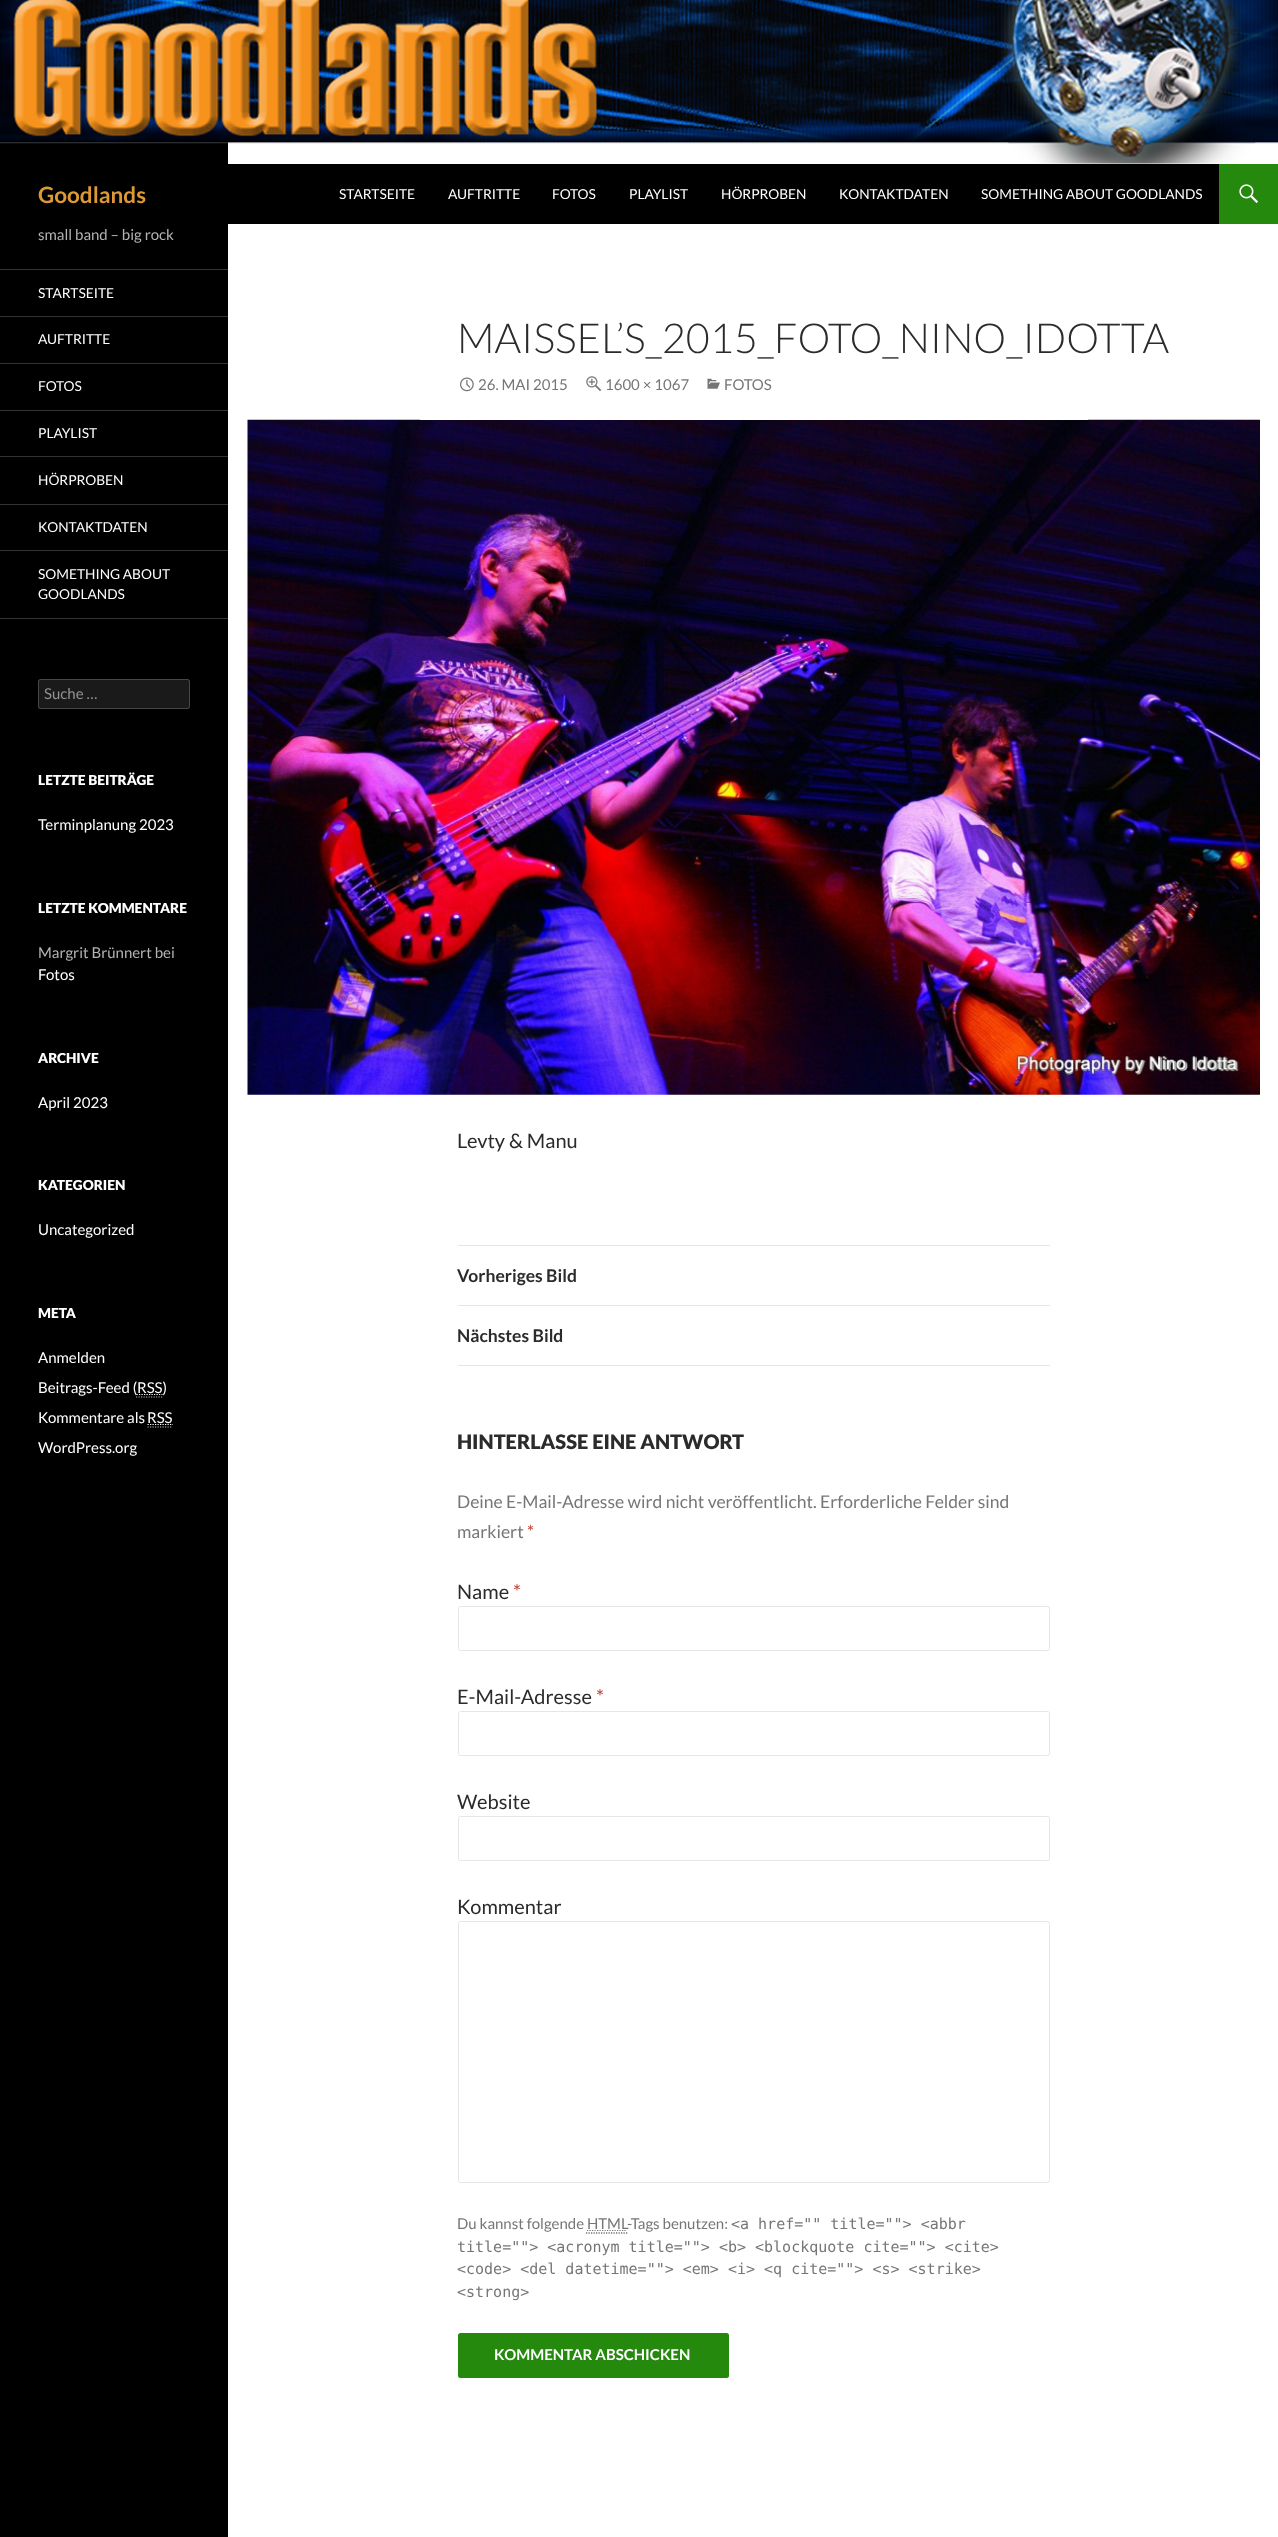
<svg xmlns="http://www.w3.org/2000/svg" width="1278" height="2537" viewBox="0 0 1278 2537">
  <style>
    .t1 { font: bold 22.5px Lato; fill: #d93; }
    .t2 { font: 13.75px Lato; fill: #fff; }
    .t3 { font: 15px Lato; fill: #b3b3b3; }
    .t4 { font: 15px Lato; fill: #939393; }
    .t5 { font: 900 13.75px Lato; fill: #fff; }
    .t6 { font: 15px Lato; fill: #fff; }
    .t7 { font: 300 41.25px Lato; fill: #2b2b2b; }
    .t8 { font: 15px Lato; fill: #767676; }
    .t9 { font: 20px Lato; fill: #2b2b2b; }
    .t10 { font: bold 17.5px Lato; fill: #2b2b2b; }
    .t11 { font: 900 20px Lato; fill: #2b2b2b; }
    .t12 { font: 17.5px Lato; fill: #767676; }
    .t13 { font: 17.5px Lato; fill: #c0392b; }
    .t14 { font: 20px Lato; fill: #c0392b; }
    .t15 { font: 15px DejaVu Sans Mono; fill: #767676; }
    .t16 { font: bold 15px Lato; fill: #fff; }
  </style>
  <rect width="100%" height="100%" fill="#fff"/>
  <rect x="0" y="142" width="228" height="2395" fill="#000"/>
  <image x="0" y="0" width="1278" height="164" href="images/1.png"/>
  <rect x="228" y="164" width="991" height="60" fill="#000"/>
  <text x="38" y="203" class="t1">Goodlands</text>
  <text x="339" y="199" class="t2">STARTSEITE</text>
  <text x="448" y="199" class="t2">AUFTRITTE</text>
  <text x="552" y="199" class="t2">FOTOS</text>
  <text x="629" y="199" class="t2">PLAYLIST</text>
  <text x="721" y="199" class="t2">HÖRPROBEN</text>
  <text x="839" y="199" class="t2">KONTAKTDATEN</text>
  <text x="981" y="199" class="t2">SOMETHING ABOUT GOODLANDS</text>
  <rect x="1219" y="164" width="59" height="60" fill="#24890d"/>
  <image x="1239" y="184" width="19" height="19" href="images/2.png"/>
  <text x="38" y="240" class="t3">small band – big rock</text>
  <rect x="0" y="618" width="228" height="1" fill="#333"/>
  <rect x="0" y="269" width="228" height="1" fill="#333"/>
  <text x="38" y="298" class="t2">STARTSEITE</text>
  <rect x="0" y="316" width="228" height="1" fill="#333"/>
  <text x="38" y="344" class="t2">AUFTRITTE</text>
  <rect x="0" y="363" width="228" height="1" fill="#333"/>
  <text x="38" y="391" class="t2">FOTOS</text>
  <rect x="0" y="410" width="228" height="1" fill="#333"/>
  <text x="38" y="438" class="t2">PLAYLIST</text>
  <rect x="0" y="456" width="228" height="1" fill="#333"/>
  <text x="38" y="485" class="t2">HÖRPROBEN</text>
  <rect x="0" y="504" width="228" height="1" fill="#333"/>
  <text x="38" y="532" class="t2">KONTAKTDATEN</text>
  <rect x="0" y="550" width="228" height="1" fill="#333"/>
  <text x="38" y="579" class="t2">SOMETHING ABOUT</text>
  <text x="38" y="599" class="t2">GOODLANDS</text>
  <rect x="38" y="679" width="152" height="30" rx="2.5" fill="#1a1a1a"/>
  <rect x="38.5" y="679.5" width="151" height="29" rx="2" fill="none" stroke="#ffffff33"/>
  <text x="44" y="699" class="t4">Suche …</text>
  <text x="38" y="785" class="t5">LETZTE BEITRÄGE</text>
  <text x="38" y="830" class="t6">Terminplanung 2023</text>
  <text x="38" y="913" class="t5">LETZTE KOMMENTARE</text>
  <text x="38" y="958" class="t3">Margrit Brünnert bei</text>
  <text x="38" y="980" class="t6">Fotos</text>
  <text x="38" y="1063" class="t5">ARCHIVE</text>
  <text x="38" y="1108" class="t6">April 2023</text>
  <text x="38" y="1190" class="t5">KATEGORIEN</text>
  <text x="38" y="1235" class="t6">Uncategorized</text>
  <text x="38" y="1318" class="t5">META</text>
  <text x="38" y="1363" class="t6">Anmelden</text>
  <text x="38" y="1393" class="t6">Beitrags-Feed (</text>
  <path d="M136 1397H162.5" fill="none" stroke="#b3b3b3" stroke-width="1.2" stroke-dasharray="1.25 1.25"/>
  <path d="M136.5 1394.5H162.5" fill="none" stroke="#fff" stroke-width="1.2" stroke-dasharray="1.25 1.25"/>
  <text x="137" y="1393" class="t6">RSS)</text>
  <text x="38" y="1423" class="t6">Kommentare als</text>
  <path d="M147.5 1424.5H173" fill="none" stroke="#fff" stroke-width="1.2" stroke-dasharray="1.25 1.25"/>
  <text x="147" y="1423" class="t6">RSS</text>
  <path d="M147.5 1427H172.5" fill="none" stroke="#b3b3b3" stroke-width="1.2" stroke-dasharray="1.25 1.25"/>
  <text x="38" y="1453" class="t6">WordPress.org</text>
  <image x="247" y="419" width="1013" height="676" href="images/6.png"/>
  <rect x="420" y="419" width="668" height="1" fill="#fff"/>
  <text x="457" y="353" class="t7">MAISSEL’S_2015_FOTO_NINO_IDOTTA</text>
  <image x="460" y="377" width="14" height="15" href="images/3.png"/>
  <text x="478" y="390" class="t8">26. MAI 2015</text>
  <image x="586" y="376" width="16" height="16" href="images/4.png"/>
  <text x="605" y="390" class="t8">1600 × 1067</text>
  <image x="707" y="378" width="13" height="11" href="images/5.png"/>
  <text x="724" y="390" class="t8">FOTOS</text>
  <text x="457" y="1148" class="t9">Levty &amp; Manu</text>
  <rect x="458" y="1245" width="592" height="1" fill="#e6e6e6"/>
  <rect x="458" y="1305" width="592" height="1" fill="#e6e6e6"/>
  <text x="457" y="1282" class="t10">Vorheriges Bild</text>
  <rect x="458" y="1365" width="592" height="1" fill="#e6e6e6"/>
  <text x="457" y="1342" class="t10">Nächstes Bild</text>
  <text x="457" y="1449" class="t11">HINTERLASSE EINE ANTWORT</text>
  <text x="457" y="1508" class="t12">Deine E-Mail-Adresse wird nicht veröffentlicht. Erforderliche Felder sind</text>
  <text x="457" y="1538" class="t12">markiert</text>
  <text x="527" y="1538" class="t13">*</text>
  <text x="457" y="1599" class="t9">Name</text>
  <text x="513" y="1599" class="t14">*</text>
  <rect x="458.5" y="1606.5" width="591" height="44" rx="2" fill="none" stroke="#e6e6e6"/>
  <text x="457" y="1704" class="t9">E-Mail-Adresse</text>
  <text x="596" y="1704" class="t14">*</text>
  <rect x="458.5" y="1711.5" width="591" height="44" rx="2" fill="none" stroke="#e6e6e6"/>
  <text x="457" y="1809" class="t9">Website</text>
  <rect x="458.5" y="1816.5" width="591" height="44" rx="2" fill="none" stroke="#e6e6e6"/>
  <text x="457" y="1914" class="t9">Kommentar</text>
  <rect x="458.5" y="1921.5" width="591" height="261" rx="2" fill="none" stroke="#e6e6e6"/>
  <text x="457" y="2229" class="t8">Du kannst folgende HTML</text>
  <text x="627" y="2229" class="t8">-Tags benutzen:</text>
  <text x="731" y="2229" class="t15">&lt;a href="" title=""&gt; &lt;abbr</text>
  <path d="M587 2230.5H627" fill="none" stroke="#767676" stroke-width="1.2" stroke-dasharray="1.25 1.25"/>
  <path d="M586 2233H627.5" fill="none" stroke="#2b2b2b" stroke-width="1.2" stroke-dasharray="1.25 1.25"/>
  <text x="457" y="2252" class="t15">title=""&gt; &lt;acronym title=""&gt; &lt;b&gt; &lt;blockquote cite=""&gt; &lt;cite&gt;</text>
  <text x="457" y="2274" class="t15">&lt;code&gt; &lt;del datetime=""&gt; &lt;em&gt; &lt;i&gt; &lt;q cite=""&gt; &lt;s&gt; &lt;strike&gt;</text>
  <text x="457" y="2297" class="t15">&lt;strong&gt;</text>
  <rect x="458" y="2333" width="271" height="45" rx="2.5" fill="#24890d"/>
  <text x="494" y="2360" class="t16">KOMMENTAR ABSCHICKEN</text>
</svg>
